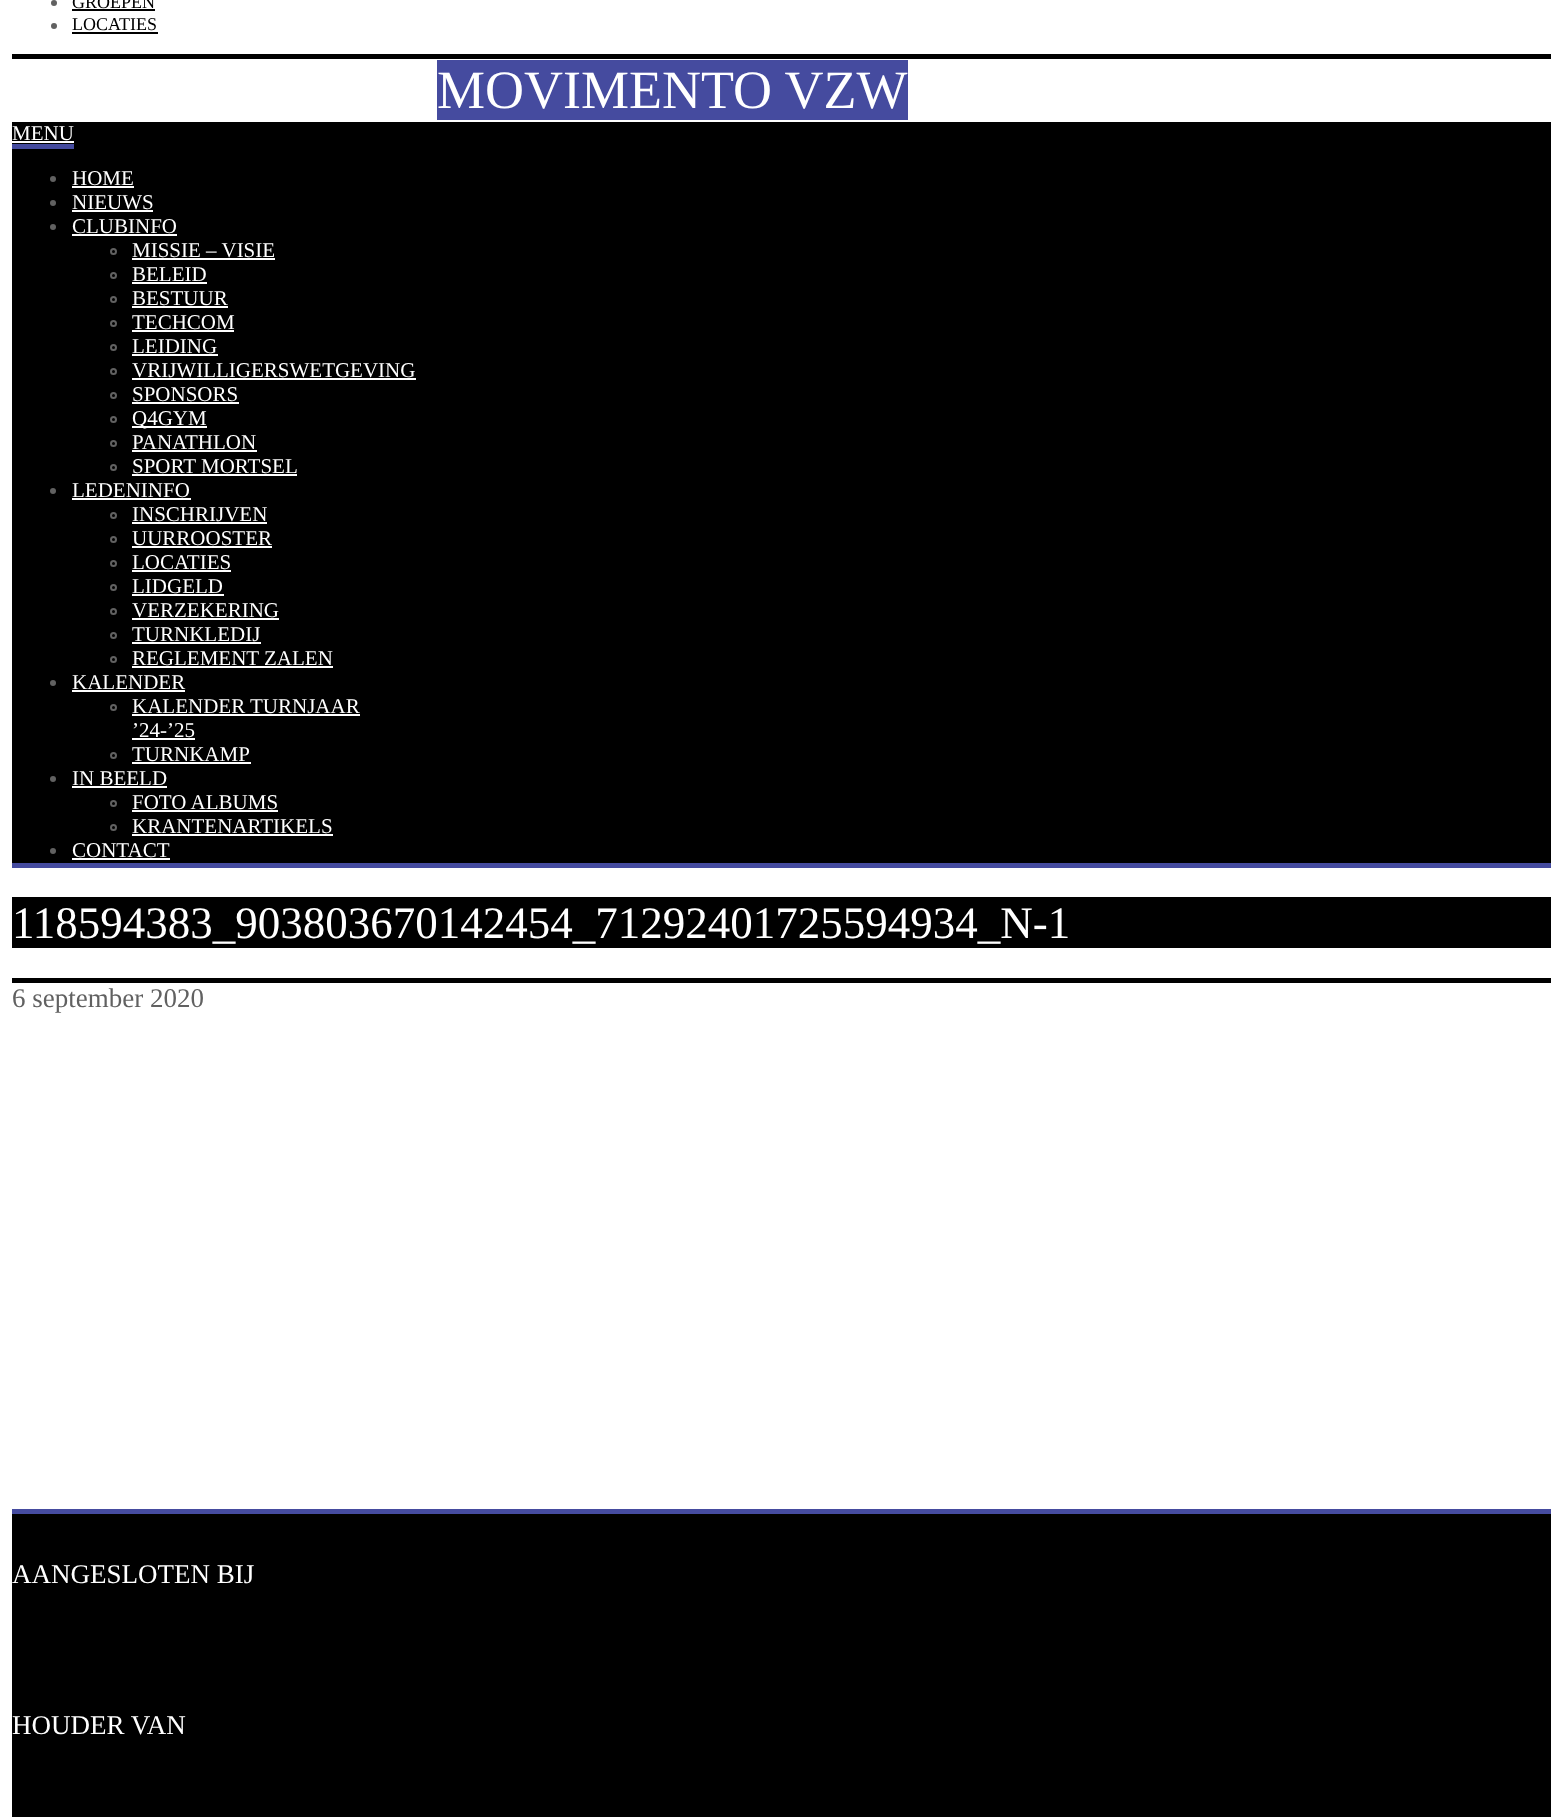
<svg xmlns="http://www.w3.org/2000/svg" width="1562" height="1817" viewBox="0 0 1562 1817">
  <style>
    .t1 { font: 18px Liberation Serif; fill: #000; }
    .t2 { font: 54px Liberation Serif; fill: #fff; }
    .t3 { font: 21px Liberation Serif; fill: #fff; }
    .t4 { font: 45px Liberation Serif; fill: #fff; }
    .t5 { font: 27px Liberation Serif; fill: #616161; }
    .t6 { font: 27px Liberation Serif; fill: #fff; }
  </style>
  <rect width="100%" height="100%" fill="#fff"/>
  <rect x="12" y="54" width="1539" height="5" fill="#000"/>
  <circle cx="54" cy="3" r="3" fill="#616161"/>
  <text x="72" y="8" class="t1">GROEPEN</text>
  <rect x="72" y="9" width="83" height="2" fill="#000"/>
  <circle cx="54" cy="26" r="3" fill="#616161"/>
  <text x="72" y="30" class="t1">LOCATIES</text>
  <rect x="72" y="32" width="86" height="2" fill="#000"/>
  <rect x="437" y="60" width="471" height="60" fill="#454b9f"/>
  <text x="437" y="108" class="t2">MOVIMENTO VZW</text>
  <rect x="12" y="122" width="1539" height="741" fill="#000"/>
  <text x="12" y="140" class="t3">MENU</text>
  <rect x="12" y="144" width="62" height="5" fill="#454b9f"/>
  <rect x="12" y="141" width="62" height="2" fill="#fff"/>
  <rect x="12" y="863" width="1539" height="5" fill="#454b9f"/>
  <circle cx="53" cy="179" r="3" fill="#616161"/>
  <text x="72" y="185" class="t3">HOME</text>
  <rect x="72" y="186" width="62" height="2" fill="#fff"/>
  <circle cx="53" cy="203" r="3" fill="#616161"/>
  <text x="72" y="209" class="t3">NIEUWS</text>
  <rect x="72" y="210" width="81" height="2" fill="#fff"/>
  <circle cx="53" cy="227" r="3" fill="#616161"/>
  <text x="72" y="233" class="t3">CLUBINFO</text>
  <rect x="72" y="234" width="105" height="2" fill="#fff"/>
  <circle cx="113.5" cy="251.5" r="2.5" fill="none" stroke="#616161" stroke-width="2"/>
  <text x="132" y="257" class="t3">MISSIE – VISIE</text>
  <rect x="132" y="258" width="143" height="2" fill="#fff"/>
  <circle cx="113.5" cy="275.5" r="2.5" fill="none" stroke="#616161" stroke-width="2"/>
  <text x="132" y="281" class="t3">BELEID</text>
  <rect x="132" y="282" width="75" height="2" fill="#fff"/>
  <circle cx="113.5" cy="299.5" r="2.5" fill="none" stroke="#616161" stroke-width="2"/>
  <text x="132" y="305" class="t3">BESTUUR</text>
  <rect x="132" y="306" width="96" height="2" fill="#fff"/>
  <circle cx="113.5" cy="323.5" r="2.5" fill="none" stroke="#616161" stroke-width="2"/>
  <text x="132" y="329" class="t3">TECHCOM</text>
  <rect x="132" y="330" width="102" height="2" fill="#fff"/>
  <circle cx="113.5" cy="347.5" r="2.5" fill="none" stroke="#616161" stroke-width="2"/>
  <text x="132" y="353" class="t3">LEIDING</text>
  <rect x="132" y="354" width="86" height="2" fill="#fff"/>
  <circle cx="113.5" cy="371.5" r="2.5" fill="none" stroke="#616161" stroke-width="2"/>
  <text x="132" y="377" class="t3">VRIJWILLIGERSWETGEVING</text>
  <rect x="132" y="378" width="284" height="2" fill="#fff"/>
  <circle cx="113.5" cy="395.5" r="2.5" fill="none" stroke="#616161" stroke-width="2"/>
  <text x="132" y="401" class="t3">SPONSORS</text>
  <rect x="132" y="402" width="107" height="2" fill="#fff"/>
  <circle cx="113.5" cy="419.5" r="2.5" fill="none" stroke="#616161" stroke-width="2"/>
  <rect x="132" y="426" width="75" height="2" fill="#fff"/>
  <text x="132" y="425" class="t3">Q4GYM</text>
  <circle cx="113.5" cy="443.5" r="2.5" fill="none" stroke="#616161" stroke-width="2"/>
  <text x="132" y="449" class="t3">PANATHLON</text>
  <rect x="132" y="450" width="125" height="2" fill="#fff"/>
  <circle cx="113.5" cy="467.5" r="2.5" fill="none" stroke="#616161" stroke-width="2"/>
  <text x="132" y="473" class="t3">SPORT MORTSEL</text>
  <rect x="132" y="474" width="165" height="2" fill="#fff"/>
  <circle cx="53" cy="491" r="3" fill="#616161"/>
  <text x="72" y="497" class="t3">LEDENINFO</text>
  <rect x="72" y="498" width="119" height="2" fill="#fff"/>
  <circle cx="113.5" cy="515.5" r="2.5" fill="none" stroke="#616161" stroke-width="2"/>
  <text x="132" y="521" class="t3">INSCHRIJVEN</text>
  <rect x="132" y="522" width="135" height="2" fill="#fff"/>
  <circle cx="113.5" cy="539.5" r="2.5" fill="none" stroke="#616161" stroke-width="2"/>
  <text x="132" y="545" class="t3">UURROOSTER</text>
  <rect x="132" y="546" width="140" height="2" fill="#fff"/>
  <circle cx="113.5" cy="563.5" r="2.5" fill="none" stroke="#616161" stroke-width="2"/>
  <text x="132" y="569" class="t3">LOCATIES</text>
  <rect x="132" y="570" width="99" height="2" fill="#fff"/>
  <circle cx="113.5" cy="587.5" r="2.5" fill="none" stroke="#616161" stroke-width="2"/>
  <text x="132" y="593" class="t3">LIDGELD</text>
  <rect x="132" y="594" width="92" height="2" fill="#fff"/>
  <circle cx="113.5" cy="611.5" r="2.5" fill="none" stroke="#616161" stroke-width="2"/>
  <text x="132" y="617" class="t3">VERZEKERING</text>
  <rect x="132" y="618" width="147" height="2" fill="#fff"/>
  <circle cx="113.5" cy="635.5" r="2.5" fill="none" stroke="#616161" stroke-width="2"/>
  <text x="132" y="641" class="t3">TURNKLEDIJ</text>
  <rect x="132" y="642" width="129" height="2" fill="#fff"/>
  <circle cx="113.5" cy="659.5" r="2.5" fill="none" stroke="#616161" stroke-width="2"/>
  <text x="132" y="665" class="t3">REGLEMENT ZALEN</text>
  <rect x="132" y="666" width="201" height="2" fill="#fff"/>
  <circle cx="53" cy="683" r="3" fill="#616161"/>
  <text x="72" y="689" class="t3">KALENDER</text>
  <rect x="72" y="690" width="113" height="2" fill="#fff"/>
  <circle cx="113.5" cy="707.5" r="2.5" fill="none" stroke="#616161" stroke-width="2"/>
  <text x="132" y="713" class="t3">KALENDER TURNJAAR</text>
  <rect x="132" y="714" width="228" height="2" fill="#fff"/>
  <text x="132" y="737" class="t3">’24-’25</text>
  <rect x="132" y="738" width="63" height="2" fill="#fff"/>
  <circle cx="113.5" cy="755.5" r="2.5" fill="none" stroke="#616161" stroke-width="2"/>
  <text x="132" y="761" class="t3">TURNKAMP</text>
  <rect x="132" y="762" width="119" height="2" fill="#fff"/>
  <circle cx="53" cy="779" r="3" fill="#616161"/>
  <text x="72" y="785" class="t3">IN BEELD</text>
  <rect x="72" y="786" width="95" height="2" fill="#fff"/>
  <circle cx="113.5" cy="803.5" r="2.5" fill="none" stroke="#616161" stroke-width="2"/>
  <text x="132" y="809" class="t3">FOTO ALBUMS</text>
  <rect x="132" y="810" width="146" height="2" fill="#fff"/>
  <circle cx="113.5" cy="827.5" r="2.5" fill="none" stroke="#616161" stroke-width="2"/>
  <text x="132" y="833" class="t3">KRANTENARTIKELS</text>
  <rect x="132" y="834" width="201" height="2" fill="#fff"/>
  <circle cx="53" cy="851" r="3" fill="#616161"/>
  <text x="72" y="857" class="t3">CONTACT</text>
  <rect x="72" y="858" width="98" height="2" fill="#fff"/>
  <rect x="12" y="897" width="1539" height="51" fill="#000"/>
  <text x="12" y="938" class="t4">118594383_903803670142454_71292401725594934_N-1</text>
  <rect x="12" y="978" width="1539" height="5" fill="#000"/>
  <text x="12" y="1007" class="t5">6 september 2020</text>
  <rect x="12" y="1514" width="1539" height="303" fill="#000"/>
  <rect x="12" y="1509" width="1539" height="5" fill="#454b9f"/>
  <text x="12" y="1583" class="t6">AANGESLOTEN BIJ</text>
  <text x="12" y="1734" class="t6">HOUDER VAN</text>
</svg>
